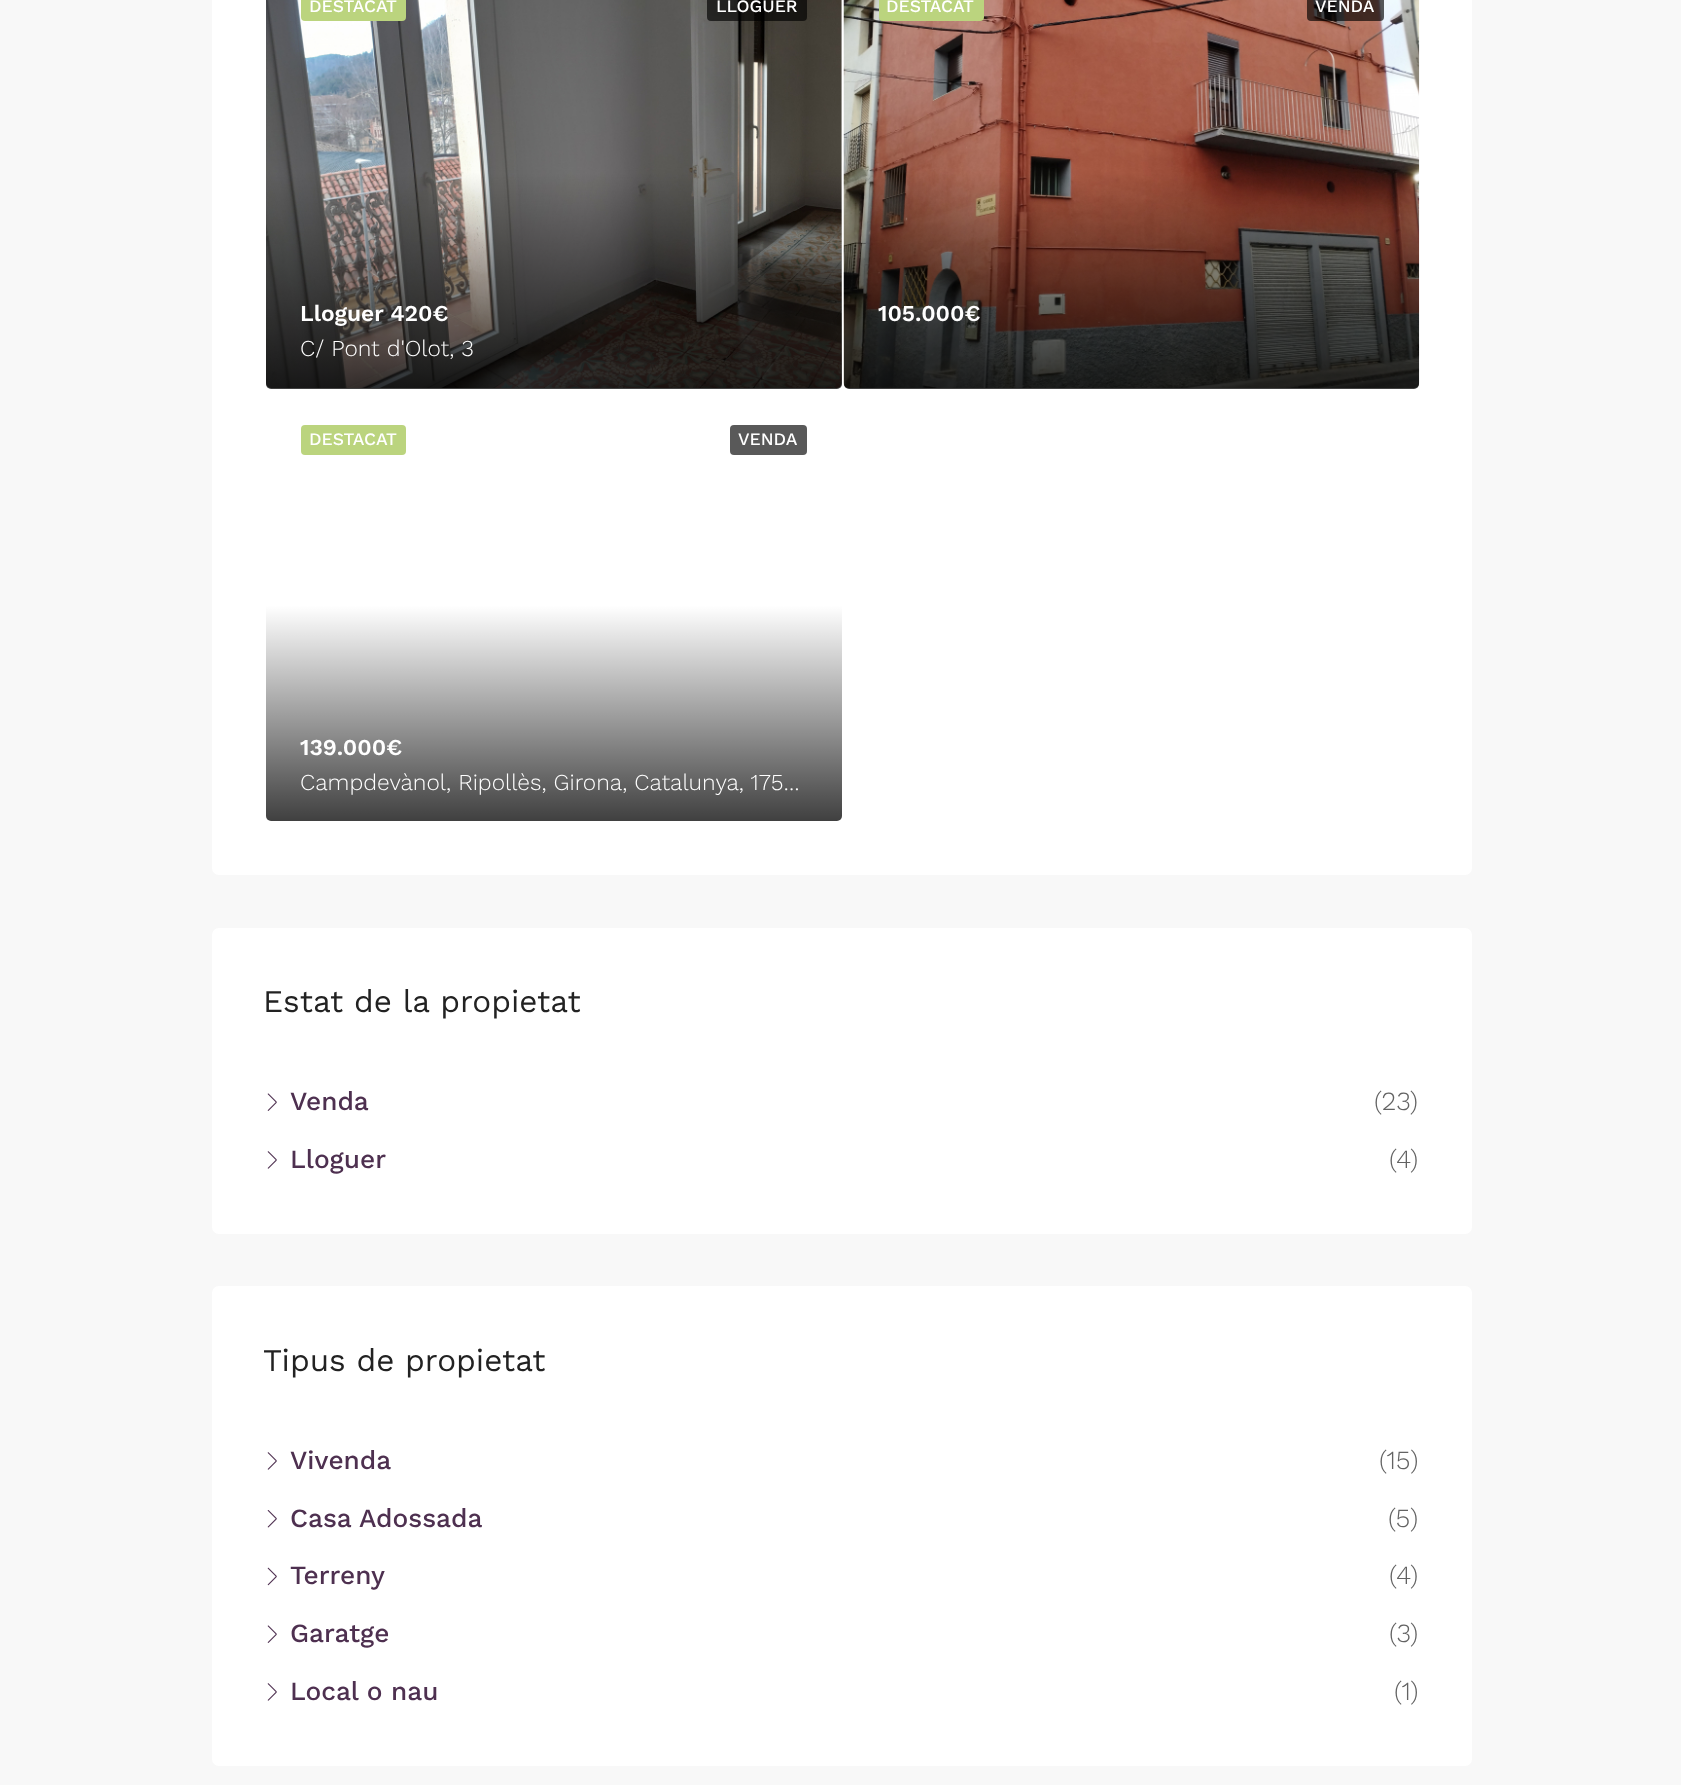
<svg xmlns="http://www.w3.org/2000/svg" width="1681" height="1785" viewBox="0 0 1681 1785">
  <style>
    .t1 { font: 500 17.5px Work Sans; fill: #fff; }
    .t2 { font: 600 22.75px Work Sans; fill: #fff; }
    .t3 { font: 300 22.75px Work Sans; fill: #fff; }
    .t4 { font: 31.5px Work Sans; fill: #222; }
    .t5 { font: 500 26.25px Work Sans; fill: #4e3050; }
    .t6 { font: 300 26.25px Work Sans; fill: #636363; }
  </style>
  <defs>
    <linearGradient id="g1" gradientUnits="userSpaceOnUse" x1="554" y1="-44" x2="554" y2="389"><stop offset="0" stop-color="#000" stop-opacity="0"/><stop offset="0.5" stop-color="#000" stop-opacity="0"/><stop offset="1" stop-color="#000" stop-opacity="0.75"/></linearGradient>
    <linearGradient id="g2" gradientUnits="userSpaceOnUse" x1="1131" y1="-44" x2="1131" y2="389"><stop offset="0" stop-color="#000" stop-opacity="0"/><stop offset="0.5" stop-color="#000" stop-opacity="0"/><stop offset="1" stop-color="#000" stop-opacity="0.75"/></linearGradient>
    <linearGradient id="g3" gradientUnits="userSpaceOnUse" x1="554" y1="390" x2="554" y2="821"><stop offset="0" stop-color="#000" stop-opacity="0"/><stop offset="0.5" stop-color="#000" stop-opacity="0"/><stop offset="1" stop-color="#000" stop-opacity="0.75"/></linearGradient>
  </defs>
  <rect width="100%" height="100%" fill="#f8f8f8"/>
  <rect x="212" y="-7" width="1260" height="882" rx="7" fill="#fff"/>
  <image x="266" y="0" width="576" height="388" href="images/1.png"/>
  <rect x="707" y="-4" width="100" height="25" rx="4" fill="#000000a6"/>
  <text x="716" y="12" class="t1">LLOGUER</text>
  <rect x="266" y="-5" width="576" height="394" rx="5" fill="url(#g1)"/>
  <rect x="301" y="-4" width="105" height="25" rx="4" fill="#bbd47e"/>
  <text x="309" y="12" class="t1">DESTACAT</text>
  <text x="300" y="321" class="t2">Lloguer 420€</text>
  <text x="300" y="356" class="t3">C/ Pont d'Olot, 3</text>
  <image x="843" y="0" width="577" height="388" href="images/2.png"/>
  <rect x="1307" y="-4" width="77" height="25" rx="4" fill="#000000a6"/>
  <text x="1315" y="12" class="t1">VENDA</text>
  <rect x="844" y="-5" width="575" height="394" rx="5" fill="url(#g2)"/>
  <rect x="879" y="-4" width="105" height="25" rx="4" fill="#bbd47e"/>
  <text x="886" y="12" class="t1">DESTACAT</text>
  <text x="878" y="321" class="t2">105.000€</text>
  <rect x="730" y="425" width="77" height="30" rx="4" fill="#595959"/>
  <text x="738" y="445" class="t1">VENDA</text>
  <rect x="266" y="390" width="576" height="431" rx="5" fill="url(#g3)"/>
  <rect x="301" y="425" width="105" height="30" rx="4" fill="#bbd47e"/>
  <text x="309" y="445" class="t1">DESTACAT</text>
  <text x="300" y="755" class="t2">139.000€</text>
  <text x="300" y="790" class="t3">Campdevànol, Ripollès, Girona, Catalunya, 175…</text>
  <rect x="212" y="928" width="1260" height="306" rx="7" fill="#fff"/>
  <text x="263" y="1012" class="t4">Estat de la propietat</text>
  <image x="267" y="1093" width="10" height="18" href="images/3.png"/>
  <text x="290" y="1110" class="t5">Venda</text>
  <text x="1374" y="1110" class="t6">(23)</text>
  <image x="267" y="1151" width="10" height="18" href="images/4.png"/>
  <text x="290" y="1168" class="t5">Lloguer</text>
  <text x="1389" y="1168" class="t6">(4)</text>
  <rect x="212" y="1286" width="1260" height="480" rx="7" fill="#fff"/>
  <text x="263" y="1371" class="t4">Tipus de propietat</text>
  <image x="267" y="1452" width="10" height="18" href="images/4.png"/>
  <text x="290" y="1469" class="t5">Vivenda</text>
  <text x="1379" y="1469" class="t6">(15)</text>
  <image x="267" y="1510" width="10" height="18" href="images/5.png"/>
  <text x="290" y="1527" class="t5">Casa Adossada</text>
  <text x="1388" y="1527" class="t6">(5)</text>
  <image x="267" y="1567" width="10" height="19" href="images/6.png"/>
  <text x="290" y="1584" class="t5">Terreny</text>
  <text x="1389" y="1584" class="t6">(4)</text>
  <image x="267" y="1625" width="10" height="18" href="images/3.png"/>
  <text x="290" y="1642" class="t5">Garatge</text>
  <text x="1389" y="1642" class="t6">(3)</text>
  <image x="267" y="1683" width="10" height="18" href="images/4.png"/>
  <text x="290" y="1700" class="t5">Local o nau</text>
  <text x="1394" y="1700" class="t6">(1)</text>
</svg>
